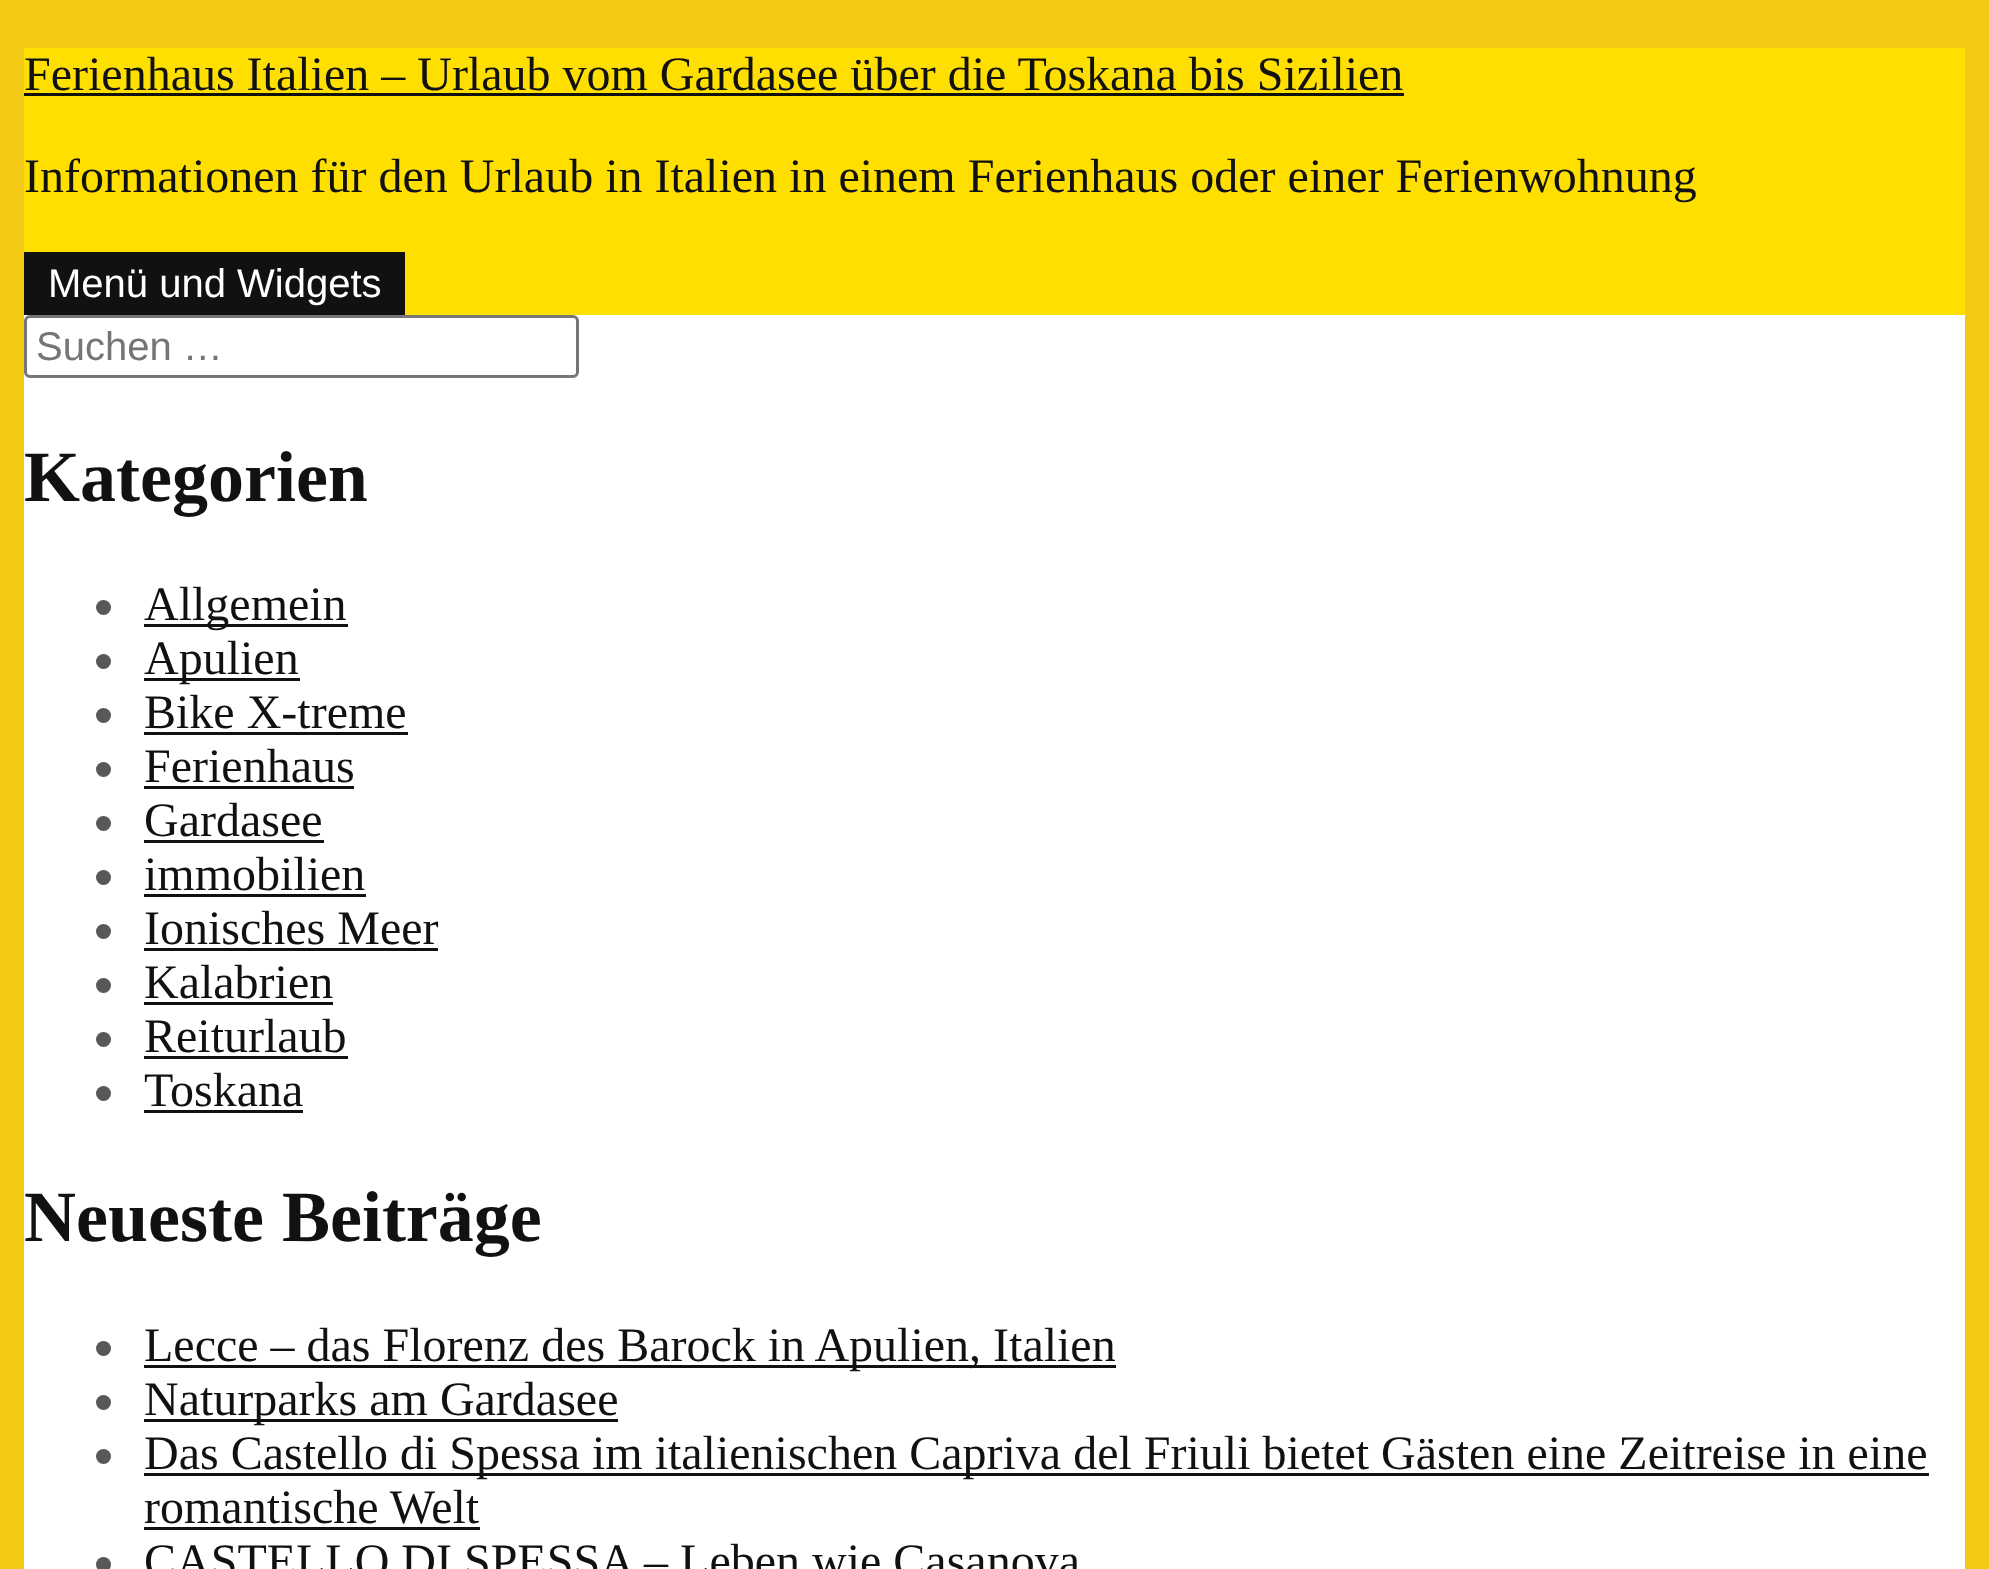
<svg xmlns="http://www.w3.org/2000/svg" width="1989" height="1569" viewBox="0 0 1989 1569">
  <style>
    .t1 { font: 48px Liberation Serif; fill: #111; }
    .t2 { font: 40px Liberation Sans; fill: #fff; }
    .t3 { font: 40px Liberation Sans; fill: #757575; }
    .t4 { font: bold 72px Liberation Serif; fill: #111; }
  </style>
  <rect width="100%" height="100%" fill="#f4ca16"/>
  <rect x="24" y="48" width="1941" height="267" fill="#ffdf00"/>
  <text x="24" y="90" class="t1">Ferienhaus Italien – Urlaub vom Gardasee über die Toskana bis Sizilien</text>
  <rect x="24" y="93" width="1380" height="3" fill="#111"/>
  <text x="24" y="192" class="t1">Informationen für den Urlaub in Italien in einem Ferienhaus oder einer Ferienwohnung</text>
  <rect x="24" y="252" width="381" height="63" fill="#111"/>
  <text x="48" y="297" class="t2">Menü und Widgets</text>
  <rect x="24" y="315" width="1941" height="1254" fill="#fff"/>
  <rect x="25.5" y="316.5" width="552" height="60" rx="4.5" fill="none" stroke="#767676" stroke-width="3"/>
  <text x="36" y="360" class="t3">Suchen …</text>
  <text x="24" y="501" class="t4">Kategorien</text>
  <circle cx="103.5" cy="607.5" r="7.5" fill="#585858"/>
  <rect x="144" y="624" width="204" height="3" fill="#111"/>
  <text x="144" y="620" class="t1">Allgemein</text>
  <circle cx="103.5" cy="661.5" r="7.5" fill="#585858"/>
  <rect x="144" y="678" width="156" height="3" fill="#111"/>
  <text x="144" y="674" class="t1">Apulien</text>
  <circle cx="103.5" cy="715.5" r="7.5" fill="#585858"/>
  <text x="144" y="728" class="t1">Bike X-treme</text>
  <rect x="144" y="732" width="264" height="3" fill="#111"/>
  <circle cx="103.5" cy="769.5" r="7.5" fill="#585858"/>
  <text x="144" y="782" class="t1">Ferienhaus</text>
  <rect x="144" y="786" width="210" height="3" fill="#111"/>
  <circle cx="103.5" cy="823.5" r="7.5" fill="#585858"/>
  <text x="144" y="836" class="t1">Gardasee</text>
  <rect x="144" y="840" width="180" height="3" fill="#111"/>
  <circle cx="103.5" cy="877.5" r="7.5" fill="#585858"/>
  <text x="144" y="890" class="t1">immobilien</text>
  <rect x="144" y="894" width="222" height="3" fill="#111"/>
  <circle cx="103.5" cy="931.5" r="7.5" fill="#585858"/>
  <text x="144" y="944" class="t1">Ionisches Meer</text>
  <rect x="144" y="948" width="294" height="3" fill="#111"/>
  <circle cx="103.5" cy="985.5" r="7.5" fill="#585858"/>
  <text x="144" y="998" class="t1">Kalabrien</text>
  <rect x="144" y="1002" width="189" height="3" fill="#111"/>
  <circle cx="103.5" cy="1039.5" r="7.5" fill="#585858"/>
  <text x="144" y="1052" class="t1">Reiturlaub</text>
  <rect x="144" y="1056" width="204" height="3" fill="#111"/>
  <circle cx="103.5" cy="1093.5" r="7.5" fill="#585858"/>
  <text x="144" y="1106" class="t1">Toskana</text>
  <rect x="144" y="1110" width="159" height="3" fill="#111"/>
  <text x="24" y="1241" class="t4">Neueste Beiträge</text>
  <circle cx="103.5" cy="1348.5" r="7.5" fill="#585858"/>
  <rect x="144" y="1365" width="972" height="3" fill="#111"/>
  <text x="144" y="1361" class="t1">Lecce – das Florenz des Barock in Apulien, Italien</text>
  <circle cx="103.5" cy="1402.5" r="7.5" fill="#585858"/>
  <rect x="144" y="1419" width="474" height="3" fill="#111"/>
  <text x="144" y="1415" class="t1">Naturparks am Gardasee</text>
  <circle cx="103.5" cy="1456.5" r="7.5" fill="#585858"/>
  <rect x="144" y="1473" width="1785" height="3" fill="#111"/>
  <text x="144" y="1469" class="t1">Das Castello di Spessa im italienischen Capriva del Friuli bietet Gästen eine Zeitreise in eine</text>
  <text x="144" y="1523" class="t1">romantische Welt</text>
  <rect x="144" y="1527" width="336" height="3" fill="#111"/>
  <circle cx="103.5" cy="1564.5" r="7.5" fill="#585858"/>
  <text x="144" y="1577" class="t1">CASTELLO DI SPESSA – Leben wie Casanova</text>
</svg>
